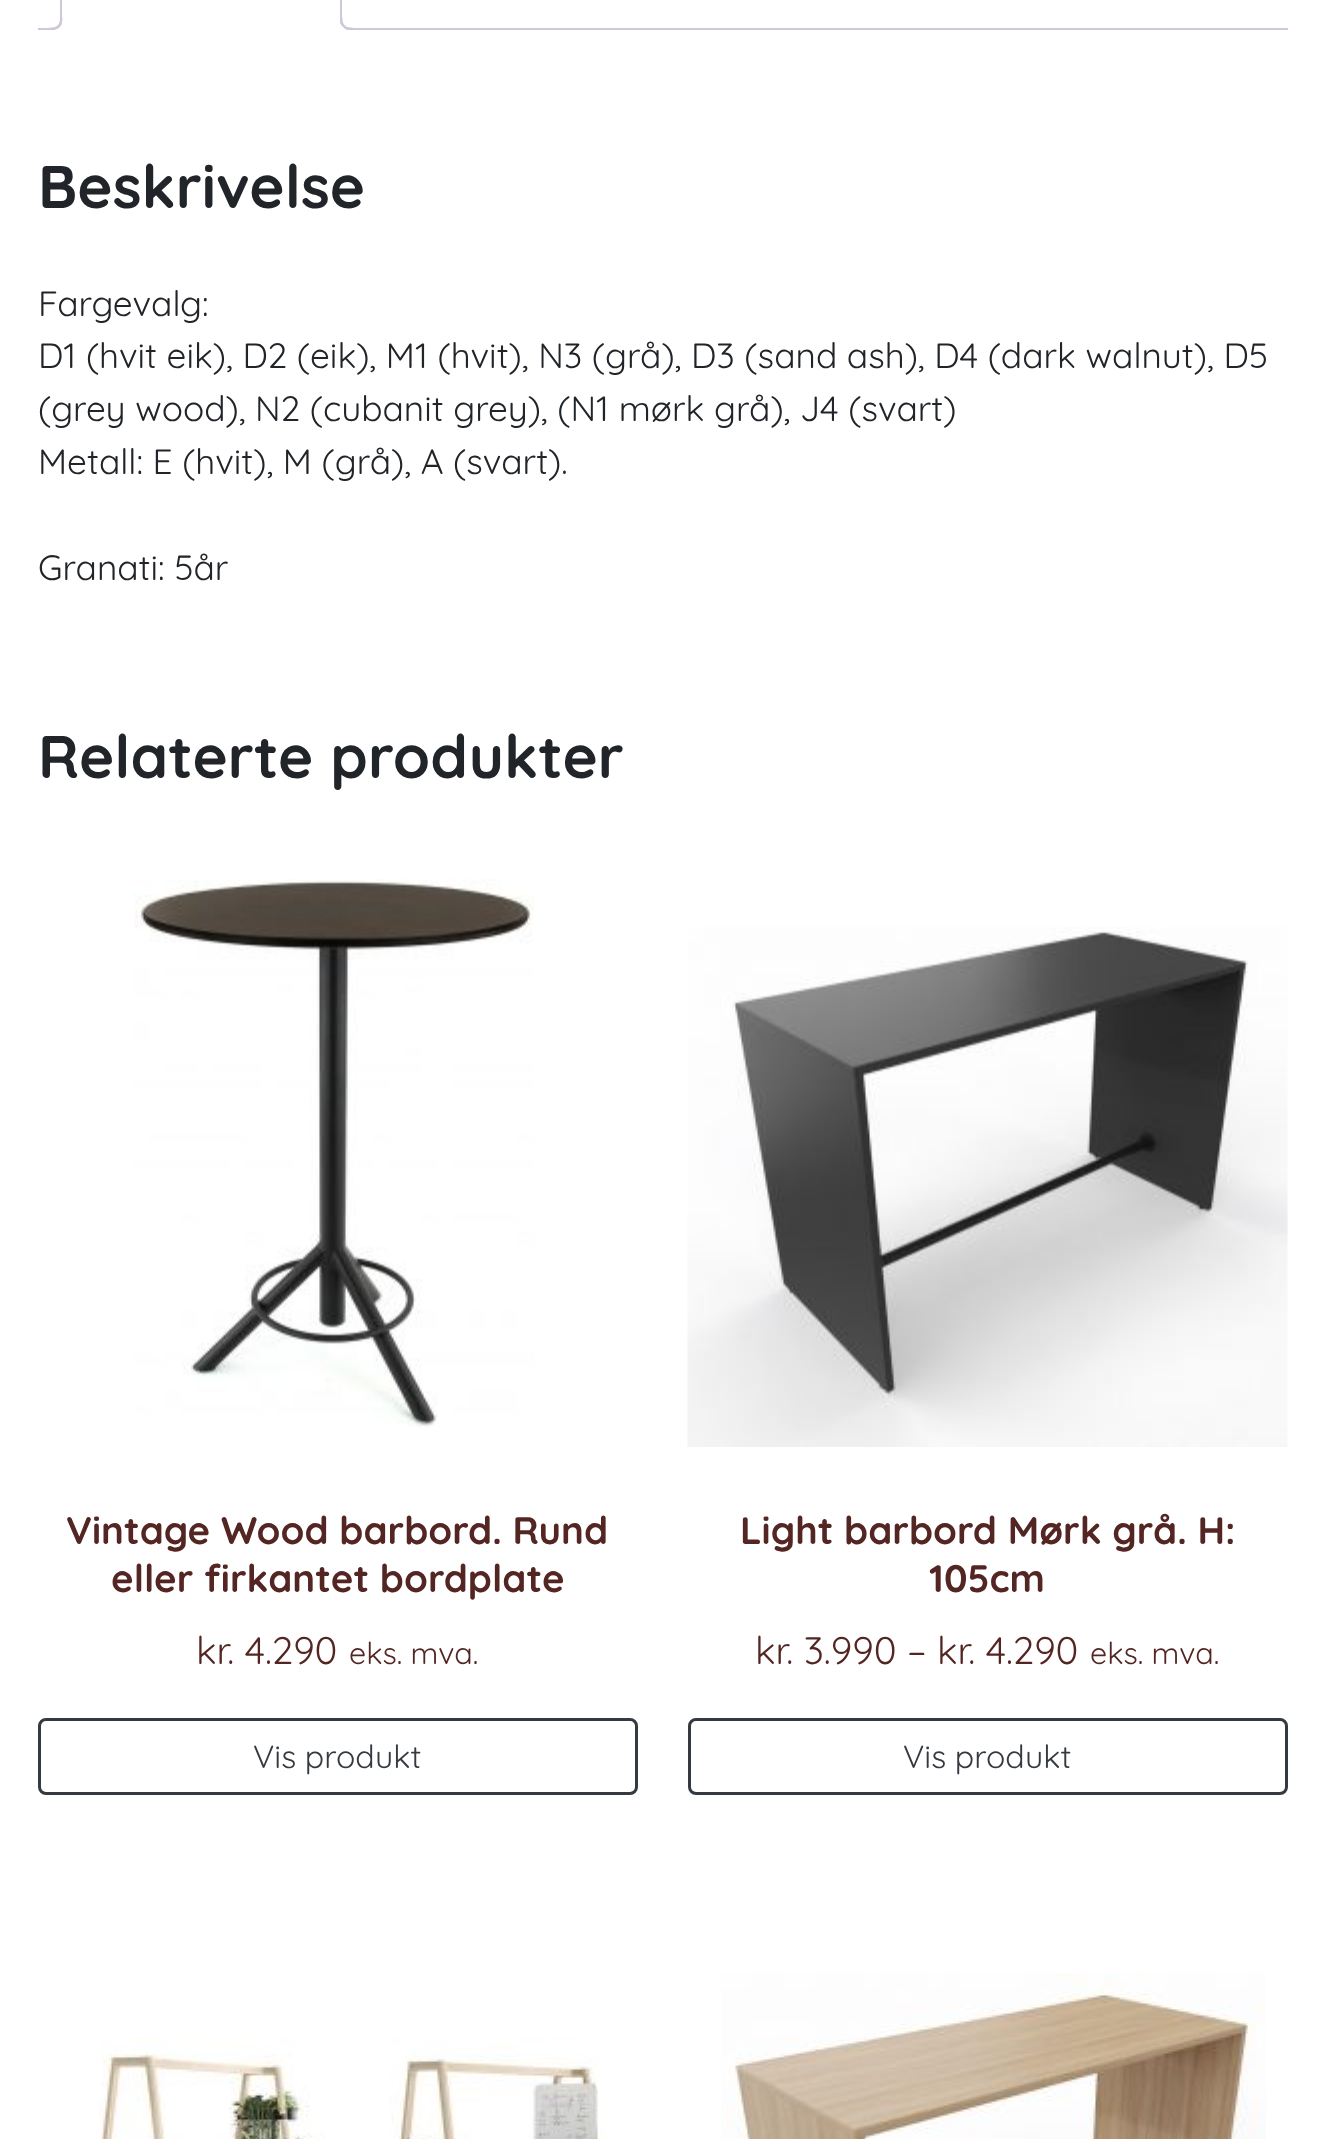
<svg xmlns="http://www.w3.org/2000/svg" width="1324" height="2139" viewBox="0 0 1324 2139">
  <style>
    .t1 { font: 300 60px Quicksand; fill: #212529; }
    .t2 { font: 300 35.2px 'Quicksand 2'; fill: #212529; }
    .t3 { font: 300 38.4px Quicksand; fill: #532623; }
    .t4 { font: 300 38.4px 'Quicksand 2'; fill: #532623; }
    .t5 { font: 300 30.5px 'Quicksand 2'; fill: #532623; }
    .t6 { font: 300 32px 'Quicksand 2'; fill: #343a40; }
  </style>
  <defs>
    <clipPath id="clip1"><rect x="38" y="0" width="1250" height="30"/></clipPath>
  </defs>
  <rect width="100%" height="100%" fill="#fff"/>
  <rect x="38" y="28" width="1250" height="2" fill="#cfc8d8"/>
  <path d="M342 30V-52C342-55 341-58 339-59L338-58C339-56 340-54 340-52V28Z" fill="#cfc8d8"/>
  <path d="M342 30L340 28H62L60 30Z" fill="#fff"/>
  <path d="M60 30L62 28V-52C62-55 63-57 65-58L63-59C61-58 60-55 60-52Z" fill="#cfc8d8"/>
  <g clip-path="url(#clip1)">
    <path d="M55 29.5V35H60C66 33.5 68 28.5 68 23H62C61 26.5 58.5 29 55 29.5Z" fill="#fff"/>
  </g>
  <path d="M50 17.5H62.5C62.5 26.5 59 30 50 30ZM50 17.5H60C60 25 57.5 27.5 50 27.5Z" fill="#cfc8d8" fill-rule="evenodd"/>
  <g clip-path="url(#clip1)">
    <path d="M335 23C335 28.5 337 33.5 343 35H348V30C344.5 29 341.5 26.5 340.5 23Z" fill="#fff"/>
  </g>
  <path d="M340 17.5H352.5V30H350C344.5 30 340 25.5 340 20ZM342.5 17.5H352.5V27.5H350C346 27.5 342.5 24 342.5 20Z" fill="#cfc8d8" fill-rule="evenodd"/>
  <text x="38" y="208" class="t1">Beskrivelse</text>
  <text x="38" y="316" class="t2">Fargevalg:</text>
  <text x="38" y="368" class="t2">D1 (hvit eik), D2 (eik), M1 (hvit), N3 (grå), D3 (sand ash), D4 (dark walnut), D5</text>
  <text x="38" y="421" class="t2">(grey wood), N2 (cubanit grey), (N1 mørk grå), J4 (svart)</text>
  <text x="38" y="474" class="t2">Metall: E (hvit), M (grå), A (svart).</text>
  <text x="38" y="580" class="t2">Granati: 5år</text>
  <text x="38" y="778" class="t1">Relaterte produkter</text>
  <image x="134" y="879" width="400" height="548" href="images/1.png"/>
  <text x="66" y="1544" class="t3">Vintage Wood barbord. Rund</text>
  <text x="111" y="1592" class="t3">eller firkantet bordplate</text>
  <text x="196" y="1664" class="t4">kr. 4.290</text>
  <text x="349" y="1664" class="t5">eks. mva.</text>
  <rect x="39.5" y="1719.5" width="597" height="74" rx="6.5" fill="none" stroke="#343a40" stroke-width="3"/>
  <text x="253" y="1768" class="t6">Vis produkt</text>
  <image x="687" y="927" width="601" height="520" href="images/2.png"/>
  <text x="740" y="1544" class="t3">Light barbord Mørk grå. H:</text>
  <text x="929" y="1592" class="t3">105cm</text>
  <text x="755" y="1664" class="t4">kr. 3.990 – kr. 4.290</text>
  <text x="1090" y="1664" class="t5">eks. mva.</text>
  <rect x="689.5" y="1719.5" width="597" height="74" rx="6.5" fill="none" stroke="#343a40" stroke-width="3"/>
  <text x="903" y="1768" class="t6">Vis produkt</text>
  <image x="99" y="2038" width="506" height="101" href="images/3.png"/>
  <image x="721" y="1973" width="545" height="166" href="images/4.png"/>
</svg>
